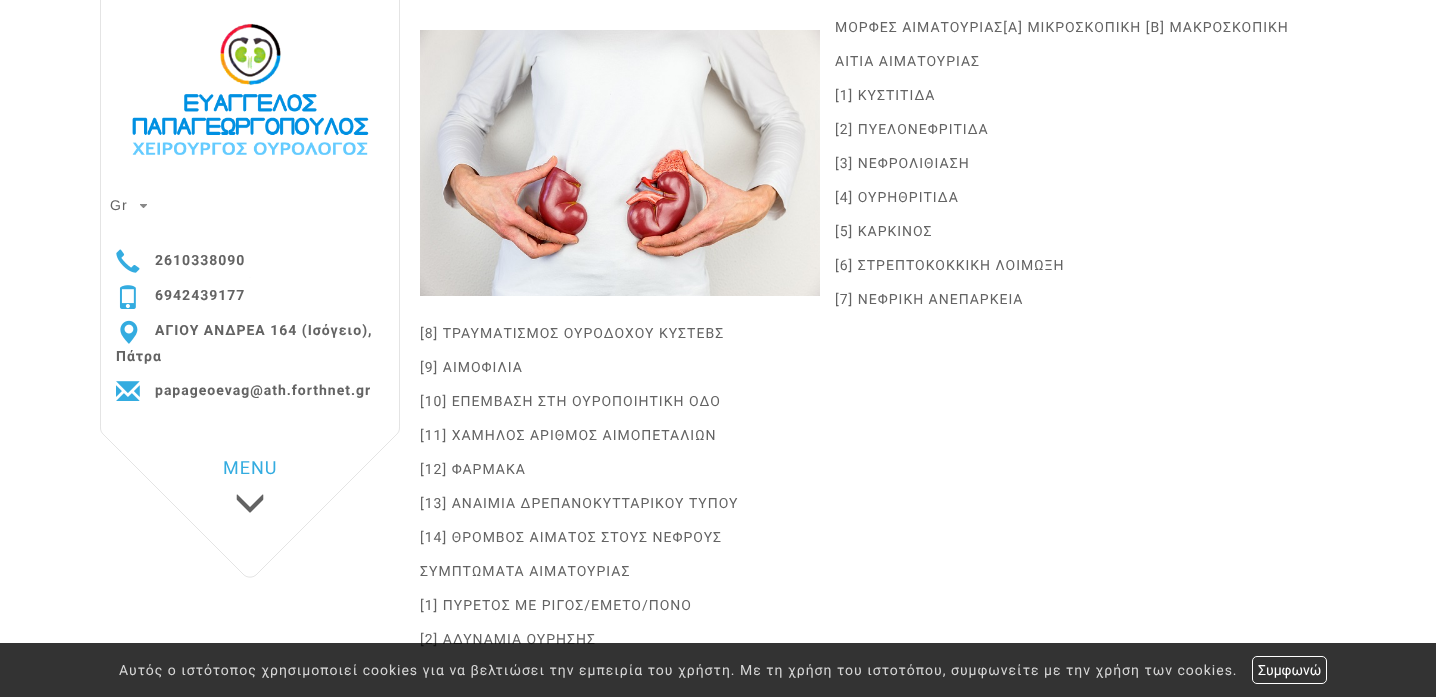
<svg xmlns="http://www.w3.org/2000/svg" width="1436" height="697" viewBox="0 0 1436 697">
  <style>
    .t1 { font: 14px Liberation Sans; letter-spacing: 1px; fill: #636363; }
    .t2 { font: bold 14px Roboto; letter-spacing: 1px; fill: #636363; }
    .t3 { font: 18px Roboto; letter-spacing: 1px; fill: #34ace0; }
    .t4 { font: 14px Roboto; letter-spacing: 1px; fill: #636363; }
    .t5 { font: 14px Roboto; letter-spacing: 1px; fill: #d6d6d6; }
    .t6 { font: 14px Roboto; fill: #fff; }
  </style>
  <rect width="100%" height="100%" fill="#fff"/>
  <rect x="399" y="0" width="1" height="428" fill="#e4e4e4"/>
  <rect x="100" y="0" width="1" height="428" fill="#e4e4e4"/>
  <image x="132" y="23" width="237" height="132" href="images/1.png"/>
  <path d="M257 281L397 421C401 425 401 431 397 435L257 575C253 579 247 579 243 575L103 435C99 431 99 425 103 421L243 281C247 277 253 277 257 281Z" fill="#fff"/>
  <path d="M256.5 281L396.5 421C400.5 425 400.5 431 396.5 434.5L256.5 574.5C253 578 247 578 243.5 574.5L103.5 434.5C99.5 431 99.5 425 103.5 421L243.5 281C247 277.5 253 277.5 256.5 281Z" fill="none" stroke="#2d2d2d21"/>
  <rect x="101" y="278" width="298" height="149" fill="#fff"/>
  <text x="110" y="210" class="t1">Gr</text>
  <image x="140" y="204" width="7" height="4" href="images/2.png"/>
  <image x="116" y="249" width="24" height="24" href="images/3.png"/>
  <text x="155" y="265" class="t2">2610338090</text>
  <image x="119" y="285" width="17" height="24" href="images/4.png"/>
  <text x="155" y="300" class="t2">6942439177</text>
  <image x="120" y="320" width="18" height="24" href="images/5.png"/>
  <text x="155" y="335" class="t2">ΑΓΙΟΥ ΑΝΔΡΕΑ 164 (Ισόγειο),</text>
  <text x="116" y="361" class="t2">Πάτρα</text>
  <image x="116" y="381" width="24" height="20" href="images/6.png"/>
  <text x="155" y="395" class="t2">papageoevag@ath.forthnet.gr</text>
  <text x="223" y="474" class="t3">MENU</text>
  <image x="236" y="494" width="28" height="19" href="images/7.png"/>
  <text x="835" y="32" class="t4">ΜΟΡΦΕΣ ΑΙΜΑΤΟΥΡΙΑΣ[Α] ΜΙΚΡΟΣΚΟΠΙΚΗ [Β] ΜΑΚΡΟΣΚΟΠΙΚΗ</text>
  <text x="835" y="66" class="t4">ΑΙΤΙΑ ΑΙΜΑΤΟΥΡΙΑΣ</text>
  <text x="835" y="100" class="t4">[1] ΚΥΣΤΙΤΙΔΑ</text>
  <text x="835" y="134" class="t4">[2] ΠΥΕΛΟΝΕΦΡΙΤΙΔΑ</text>
  <text x="835" y="168" class="t4">[3] ΝΕΦΡΟΛΙΘΙΑΣΗ</text>
  <text x="835" y="202" class="t4">[4] ΟΥΡΗΘΡΙΤΙΔΑ</text>
  <text x="835" y="236" class="t4">[5] ΚΑΡΚΙΝΟΣ</text>
  <text x="835" y="270" class="t4">[6] ΣΤΡΕΠΤΟΚΟΚΚΙΚΗ ΛΟΙΜΩΞΗ</text>
  <text x="835" y="304" class="t4">[7] ΝΕΦΡΙΚΗ ΑΝΕΠΑΡΚΕΙΑ</text>
  <text x="420" y="338" class="t4">[8] ΤΡΑΥΜΑΤΙΣΜΟΣ ΟΥΡΟΔΟΧΟΥ ΚΥΣΤΕΒΣ</text>
  <text x="420" y="372" class="t4">[9] ΑΙΜΟΦΙΛΙΑ</text>
  <text x="420" y="406" class="t4">[10] ΕΠΕΜΒΑΣΗ ΣΤΗ ΟΥΡΟΠΟΙΗΤΙΚΗ ΟΔΟ</text>
  <text x="420" y="440" class="t4">[11] ΧΑΜΗΛΟΣ ΑΡΙΘΜΟΣ ΑΙΜΟΠΕΤΑΛΙΩΝ</text>
  <text x="420" y="474" class="t4">[12] ΦΑΡΜΑΚΑ</text>
  <text x="420" y="508" class="t4">[13] ΑΝΑΙΜΙΑ ΔΡΕΠΑΝΟΚΥΤΤΑΡΙΚΟΥ ΤΥΠΟΥ</text>
  <text x="420" y="542" class="t4">[14] ΘΡΟΜΒΟΣ ΑΙΜΑΤΟΣ ΣΤΟΥΣ ΝΕΦΡΟΥΣ</text>
  <text x="420" y="576" class="t4">ΣΥΜΠΤΩΜΑΤΑ ΑΙΜΑΤΟΥΡΙΑΣ</text>
  <text x="420" y="610" class="t4">[1] ΠΥΡΕΤΟΣ ΜΕ ΡΙΓΟΣ/ΕΜΕΤΟ/ΠΟΝΟ</text>
  <text x="420" y="644" class="t4">[2] ΑΔΥΝΑΜΙΑ ΟΥΡΗΣΗΣ</text>
  <image x="420" y="30" width="400" height="266" href="images/8.png"/>
  <rect x="0" y="643" width="1436" height="54" fill="#000000cc"/>
  <text x="119" y="675" class="t5">Αυτός ο ιστότοπος χρησιμοποιεί cookies για να βελτιώσει την εμπειρία του χρήστη. Με τη χρήση του ιστοτόπου, συμφωνείτε με την χρήση των cookies.</text>
  <rect x="1252.5" y="656.5" width="74" height="27" rx="4.5" fill="none" stroke="#fff"/>
  <text x="1258" y="675" class="t6">Συμφωνώ</text>
</svg>
